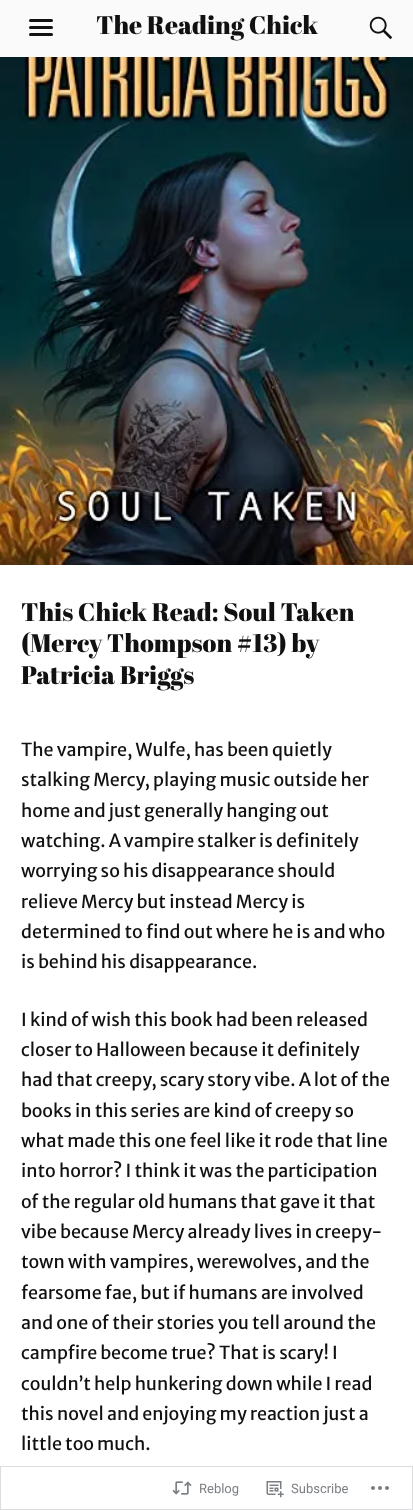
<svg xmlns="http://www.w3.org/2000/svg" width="413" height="1510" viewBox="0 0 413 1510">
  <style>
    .t1 { font: 25.5px Abril Fatface; fill: #111; }
    .t2 { font: 17.85px Merriweather Sans; fill: #111; }
    .t3 { font: 13px Roboto; fill: #7b7f84; }
  </style>
  <rect width="100%" height="100%" fill="#fafafa"/>
  <text x="96" y="34" class="t1">The Reading Chick</text>
  <rect x="29" y="19" width="24" height="3" rx="1.5" fill="#111"/>
  <rect x="29" y="26" width="24" height="3" rx="1.5" fill="#111"/>
  <rect x="29" y="33" width="24" height="3" rx="1.5" fill="#111"/>
  <image x="369" y="16" width="24" height="24" href="images/1.png"/>
  <image x="0" y="57" width="413" height="508" href="images/2.png"/>
  <rect x="0" y="565" width="413" height="945" fill="#fff"/>
  <text x="21" y="621" class="t1">This Chick Read: Soul Taken</text>
  <text x="21" y="652" class="t1">(Mercy Thompson #13) by</text>
  <text x="21" y="684" class="t1">Patricia Briggs</text>
  <text x="21" y="756" class="t2">The vampire, Wulfe, has been quietly</text>
  <text x="21" y="786" class="t2">stalking Mercy, playing music outside her</text>
  <text x="21" y="817" class="t2">home and just generally hanging out</text>
  <text x="21" y="847" class="t2">watching. A vampire stalker is definitely</text>
  <text x="21" y="877" class="t2">worrying so his disappearance should</text>
  <text x="21" y="908" class="t2">relieve Mercy but instead Mercy is</text>
  <text x="21" y="938" class="t2">determined to find out where he is and who</text>
  <text x="21" y="968" class="t2">is behind his disappearance.</text>
  <text x="21" y="1026" class="t2">I kind of wish this book had been released</text>
  <text x="21" y="1056" class="t2">closer to Halloween because it definitely</text>
  <text x="21" y="1086" class="t2">had that creepy, scary story vibe. A lot of the</text>
  <text x="21" y="1117" class="t2">books in this series are kind of creepy so</text>
  <text x="21" y="1147" class="t2">what made this one feel like it rode that line</text>
  <text x="21" y="1177" class="t2">into horror? I think it was the participation</text>
  <text x="21" y="1208" class="t2">of the regular old humans that gave it that</text>
  <text x="21" y="1238" class="t2">vibe because Mercy already lives in creepy-</text>
  <text x="21" y="1268" class="t2">town with vampires, werewolves, and the</text>
  <text x="21" y="1299" class="t2">fearsome fae, but if humans are involved</text>
  <text x="21" y="1329" class="t2">and one of their stories you tell around the</text>
  <text x="21" y="1359" class="t2">campfire become true? That is scary! I</text>
  <text x="21" y="1390" class="t2">couldn’t help hunkering down while I read</text>
  <text x="21" y="1420" class="t2">this novel and enjoying my reaction just a</text>
  <text x="21" y="1450" class="t2">little too much.</text>
  <rect x="0.5" y="1466.5" width="412" height="43" fill="none" stroke="#dcdcdefa"/>
  <image x="172" y="1481" width="20" height="14" href="images/3.png"/>
  <text x="199" y="1493" class="t3">Reblog</text>
  <image x="266" y="1481" width="18" height="17" href="images/4.png"/>
  <text x="291" y="1493" class="t3">Subscribe</text>
  <image x="371" y="1486" width="18" height="4" href="images/5.png"/>
</svg>
